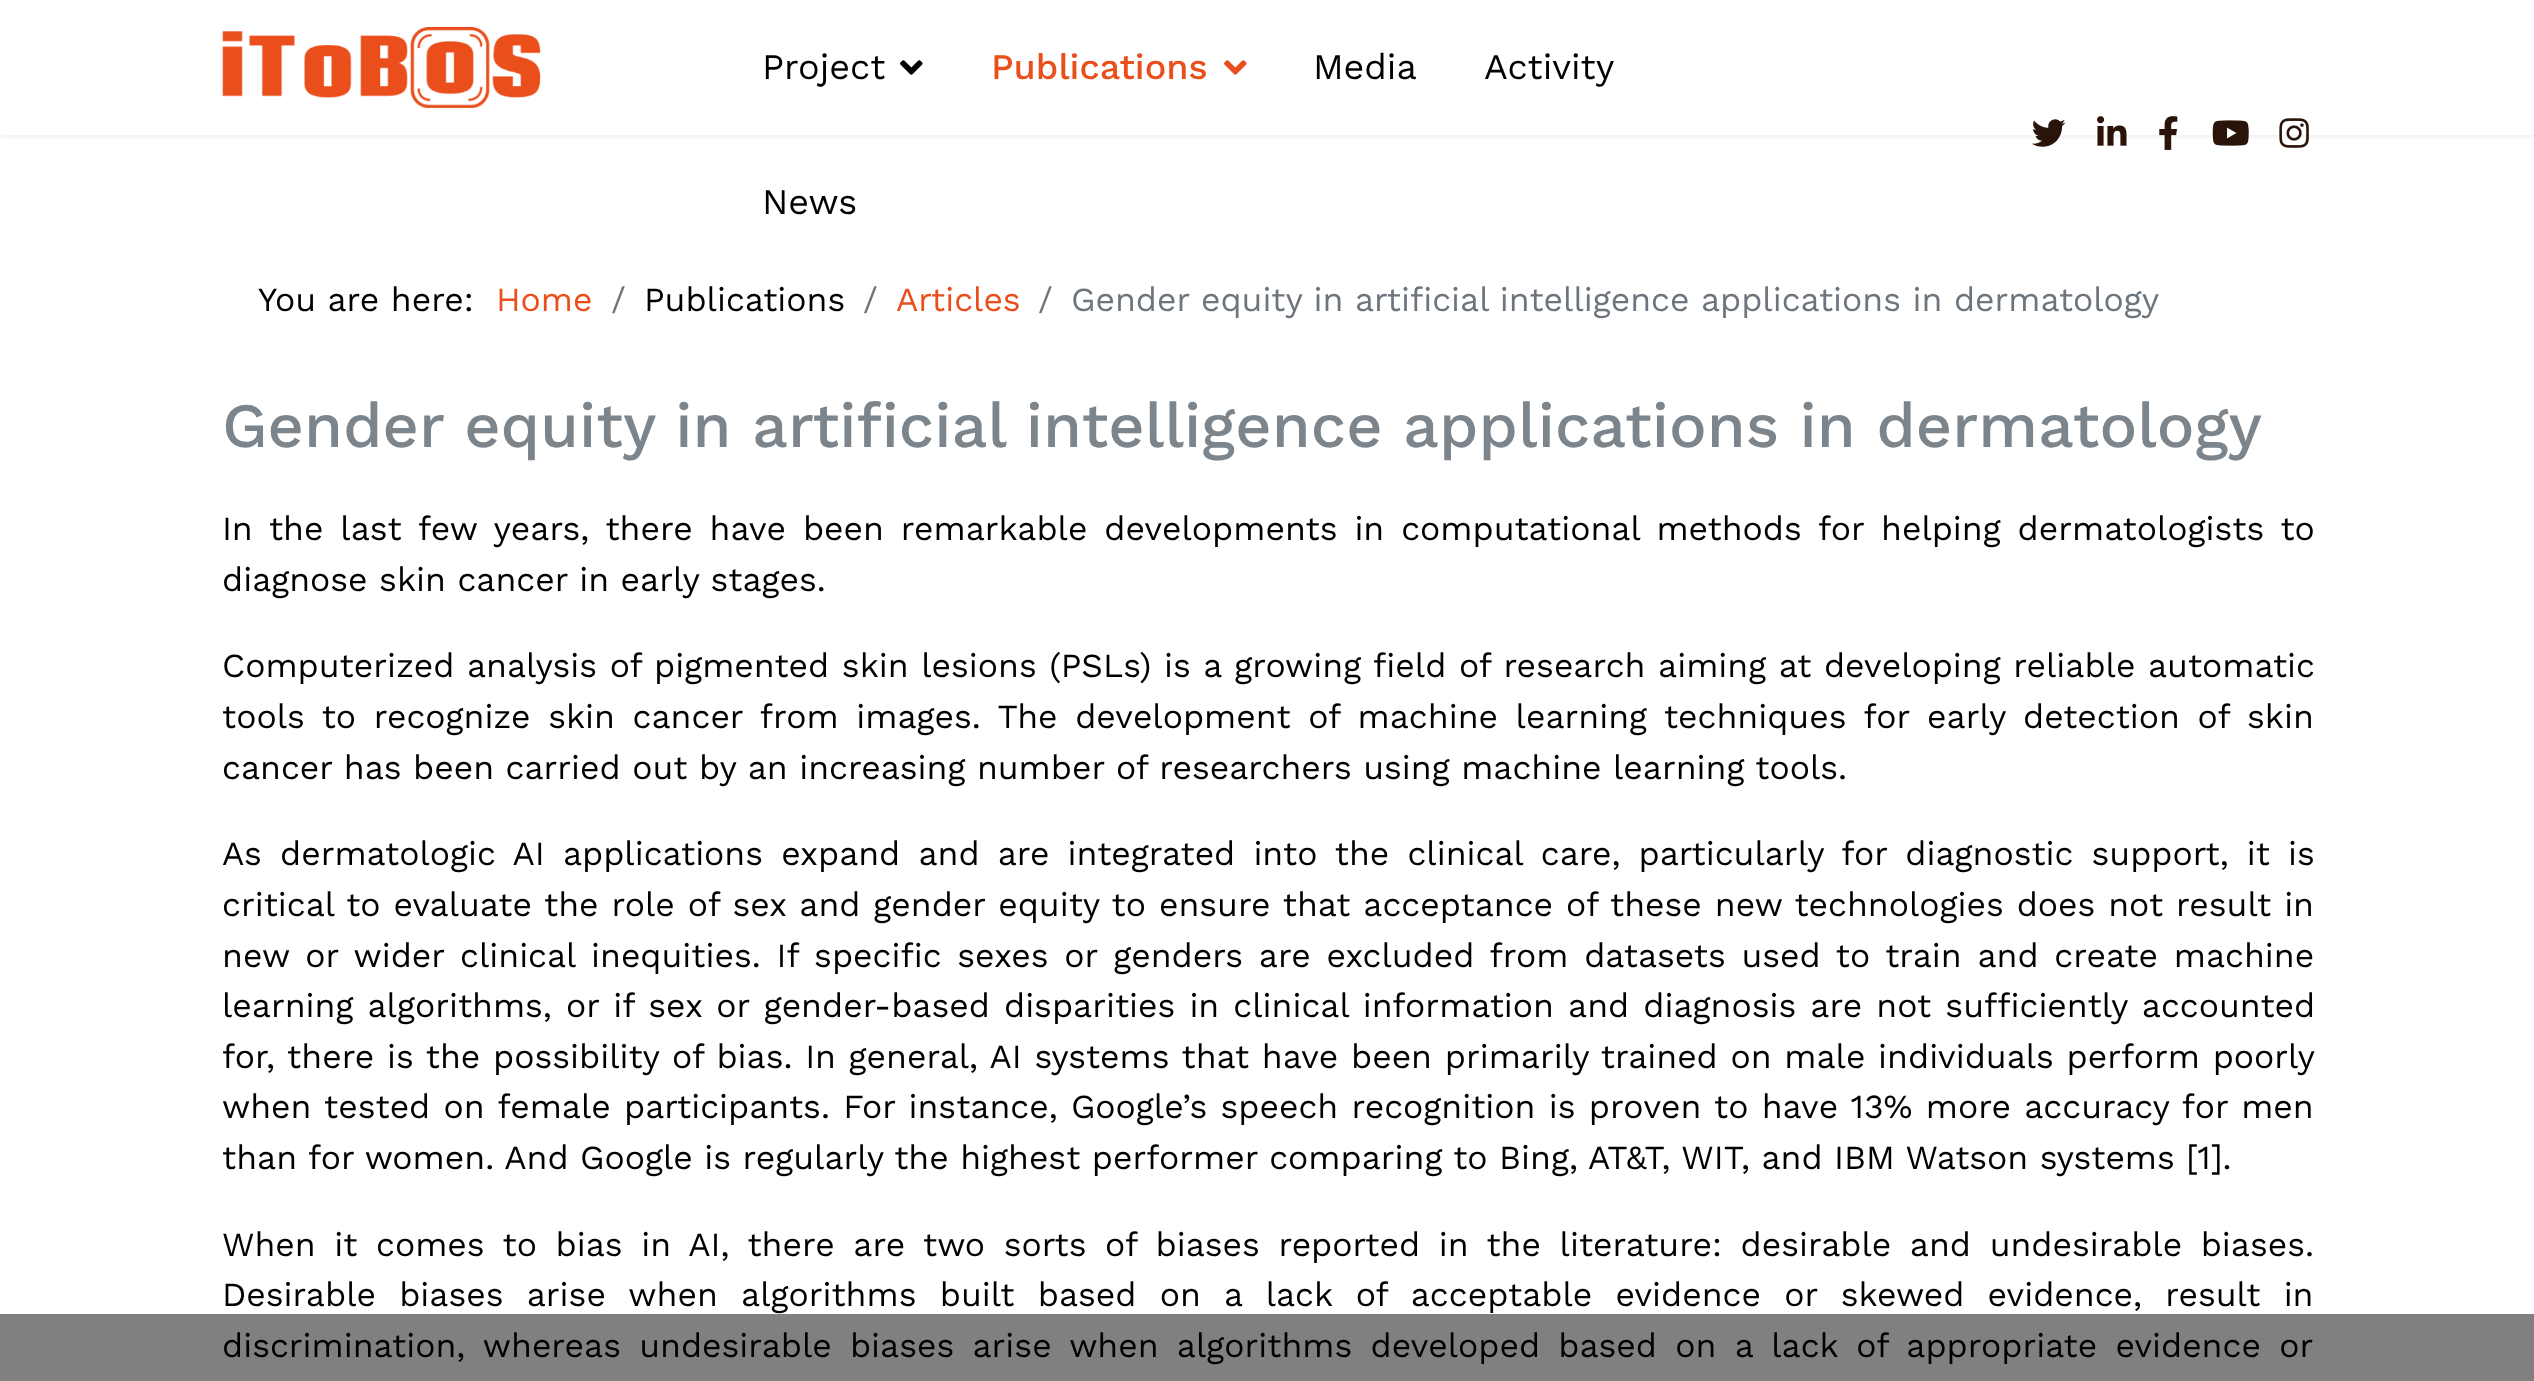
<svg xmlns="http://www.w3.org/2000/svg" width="2534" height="1381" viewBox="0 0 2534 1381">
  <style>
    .t1 { font: 36px Work Sans; fill: #000; }
    .t2 { font: 500 36px Work Sans; fill: #e94e1b; }
    .t3 { font: 33.75px Work Sans; fill: #000; }
    .t4 { font: 33.75px Work Sans; fill: #e94e1b; }
    .t5 { font: 33.75px Work Sans; fill: #6c757d; }
    .t6 { font: 500 63px Work Sans; fill: #7d858c; }
  </style>
  <defs>
    <clipPath id="clip1"><rect x="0" y="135" width="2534" height="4"/></clipPath>
  </defs>
  <rect width="100%" height="100%" fill="#fff"/>
  <rect x="0" y="1314" width="2534" height="67" fill="#808080"/>
  <g clip-path="url(#clip1)">
    <rect x="0" y="0" width="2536" height="135" fill="#0000001a" filter="blur(4.5px)"/>
  </g>
  <image x="222" y="27" width="319" height="81" href="images/1.png"/>
  <text x="762" y="79" class="t1">Project</text>
  <image x="900" y="60" width="23" height="15" href="images/2.png"/>
  <text x="991" y="79" class="t2">Publications</text>
  <image x="1224" y="60" width="23" height="15" href="images/3.png"/>
  <text x="1313" y="79" class="t1">Media</text>
  <text x="1484" y="79" class="t1">Activity</text>
  <text x="762" y="214" class="t1">News</text>
  <image x="2032" y="119" width="34" height="28" href="images/4.png"/>
  <image x="2097" y="116" width="30" height="30" href="images/5.png"/>
  <image x="2159" y="116" width="19" height="34" href="images/6.png"/>
  <image x="2212" y="120" width="37" height="26" href="images/7.png"/>
  <image x="2279" y="118" width="30" height="30" href="images/8.png"/>
  <text x="258" y="311" class="t3">You are here:</text>
  <text x="496" y="311" class="t4">Home</text>
  <text x="611" y="311" class="t5">/</text>
  <text x="644" y="311" class="t3">Publications</text>
  <text x="863" y="311" class="t5">/</text>
  <text x="896" y="311" class="t4">Articles</text>
  <text x="1038" y="311" class="t5">/</text>
  <text x="1071" y="311" class="t5">Gender equity in artificial intelligence applications in dermatology</text>
  <text x="222" y="447" class="t6">Gender equity in artificial intelligence applications in dermatology</text>
  <text x="222" y="540" word-spacing="5.4" class="t3">In the last few years, there have been remarkable developments in computational methods for helping dermatologists to</text>
  <text x="222" y="591" class="t3">diagnose skin cancer in early stages.</text>
  <text x="222" y="677" word-spacing="1.1" class="t3">Computerized analysis of pigmented skin lesions (PSLs) is a growing field of research aiming at developing reliable automatic</text>
  <text x="222" y="728" word-spacing="6.1" class="t3">tools to recognize skin cancer from images. The development of machine learning techniques for early detection of skin</text>
  <text x="222" y="779" class="t3">cancer has been carried out by an increasing number of researchers using machine learning tools.</text>
  <text x="222" y="865" word-spacing="6.6" class="t3">As dermatologic AI applications expand and are integrated into the clinical care, particularly for diagnostic support, it is</text>
  <text x="222" y="916" word-spacing="1.4" class="t3">critical to evaluate the role of sex and gender equity to ensure that acceptance of these new technologies does not result in</text>
  <text x="222" y="967" word-spacing="4.25" class="t3">new or wider clinical inequities. If specific sexes or genders are excluded from datasets used to train and create machine</text>
  <text x="222" y="1017" word-spacing="2.6" class="t3">learning algorithms, or if sex or gender-based disparities in clinical information and diagnosis are not sufficiently accounted</text>
  <text x="222" y="1068" word-spacing="1.2" class="t3">for, there is the possibility of bias. In general, AI systems that have been primarily trained on male individuals perform poorly</text>
  <text x="222" y="1118" word-spacing="1.8" class="t3">when tested on female participants. For instance, Google’s speech recognition is proven to have 13% more accuracy for men</text>
  <text x="222" y="1169" class="t3">than for women. And Google is regularly the highest performer comparing to Bing, AT&amp;T, WIT, and IBM Watson systems [1].</text>
  <text x="222" y="1256" word-spacing="7.1" class="t3">When it comes to bias in AI, there are two sorts of biases reported in the literature: desirable and undesirable biases.</text>
  <text x="222" y="1306" word-spacing="11.75" class="t3">Desirable biases arise when algorithms built based on a lack of acceptable evidence or skewed evidence, result in</text>
  <text x="222" y="1357" word-spacing="6.75" class="t3">discrimination, whereas undesirable biases arise when algorithms developed based on a lack of appropriate evidence or</text>
</svg>
